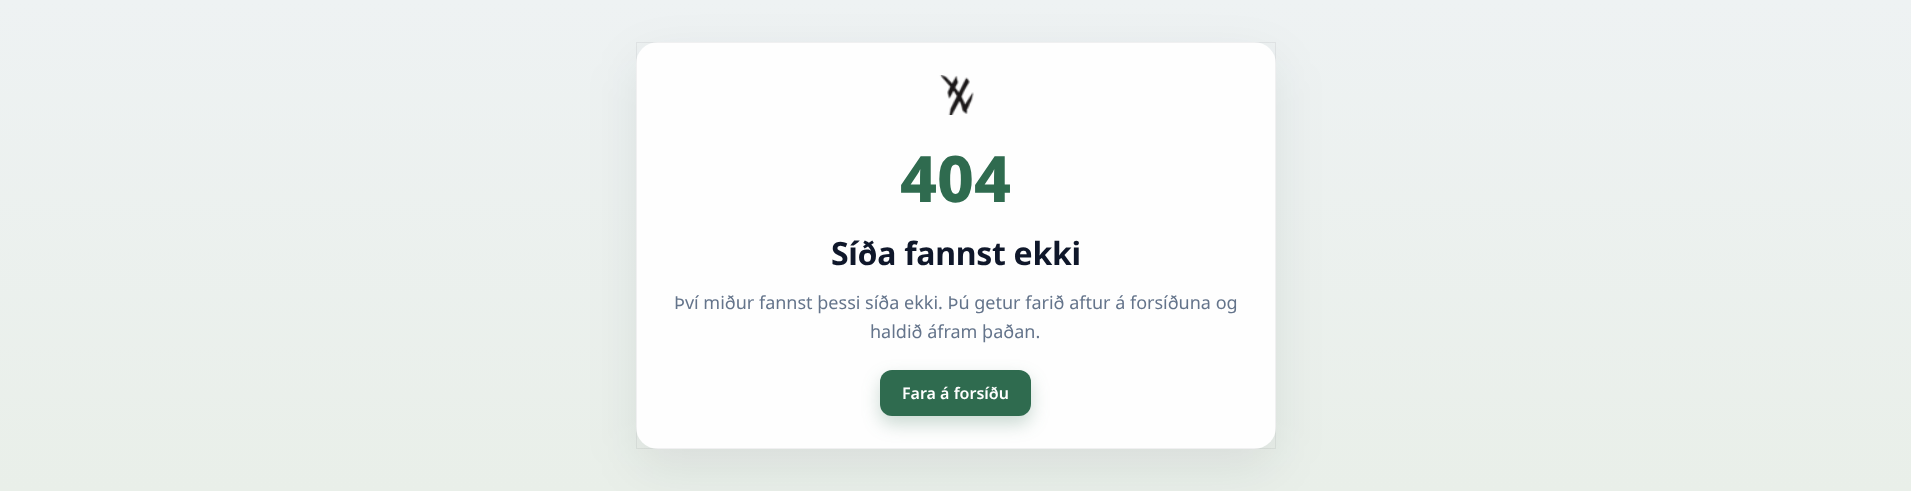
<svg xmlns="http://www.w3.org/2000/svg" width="1911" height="491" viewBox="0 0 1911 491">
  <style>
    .t1 { font: 800 64px Noto Sans; fill: #2f6b4f; }
    .t2 { font: bold 32px Noto Sans; letter-spacing: -0.3px; fill: #0f172a; }
    .t3 { font: 18px Noto Sans; fill: #64748b; }
    .t4 { font: 600 16px Noto Sans; fill: #fff; }
  </style>
  <defs>
    <linearGradient id="g1" gradientUnits="userSpaceOnUse" x1="956" y1="0" x2="956" y2="491"><stop offset="0" stop-color="#eef2f3"/><stop offset="1" stop-color="#e9efe9"/></linearGradient>
    <clipPath id="clip1"><path d="M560 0H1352V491H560ZM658 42H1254C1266 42 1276 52 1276 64V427C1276 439 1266 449 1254 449H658C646 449 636 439 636 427V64C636 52 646 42 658 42Z" clip-rule="evenodd"/></clipPath>
  </defs>
  <rect width="100%" height="100%" fill="#fff"/>
  <rect x="0" y="0" width="1911" height="491" fill="url(#g1)"/>
  <g clip-path="url(#clip1)">
    <rect x="636" y="60" width="640" height="407" rx="22" fill="#0f172a14" filter="blur(25px)"/>
  </g>
  <rect x="636" y="42" width="640" height="407" rx="22" fill="#ffffffeb"/>
  <rect x="636.5" y="42.5" width="639" height="406" fill="none" stroke="#0f172a0f"/>
  <image x="939" y="75" width="35" height="40" href="images/1.png"/>
  <text x="900" y="202" class="t1">404</text>
  <text x="831" y="265" class="t2">Síða fannst ekki</text>
  <text x="674" y="309" class="t3">Því miður fannst þessi síða ekki. Þú getur farið aftur á forsíðuna og</text>
  <text x="870" y="338" class="t3">haldið áfram þaðan.</text>
  <rect x="880" y="378" width="151" height="46" rx="12" fill="#2f6b4f40" filter="blur(9px)"/>
  <rect x="880" y="370" width="151" height="46" rx="12" fill="#2f6b4f"/>
  <text x="902" y="399" class="t4">Fara á forsíðu</text>
</svg>
